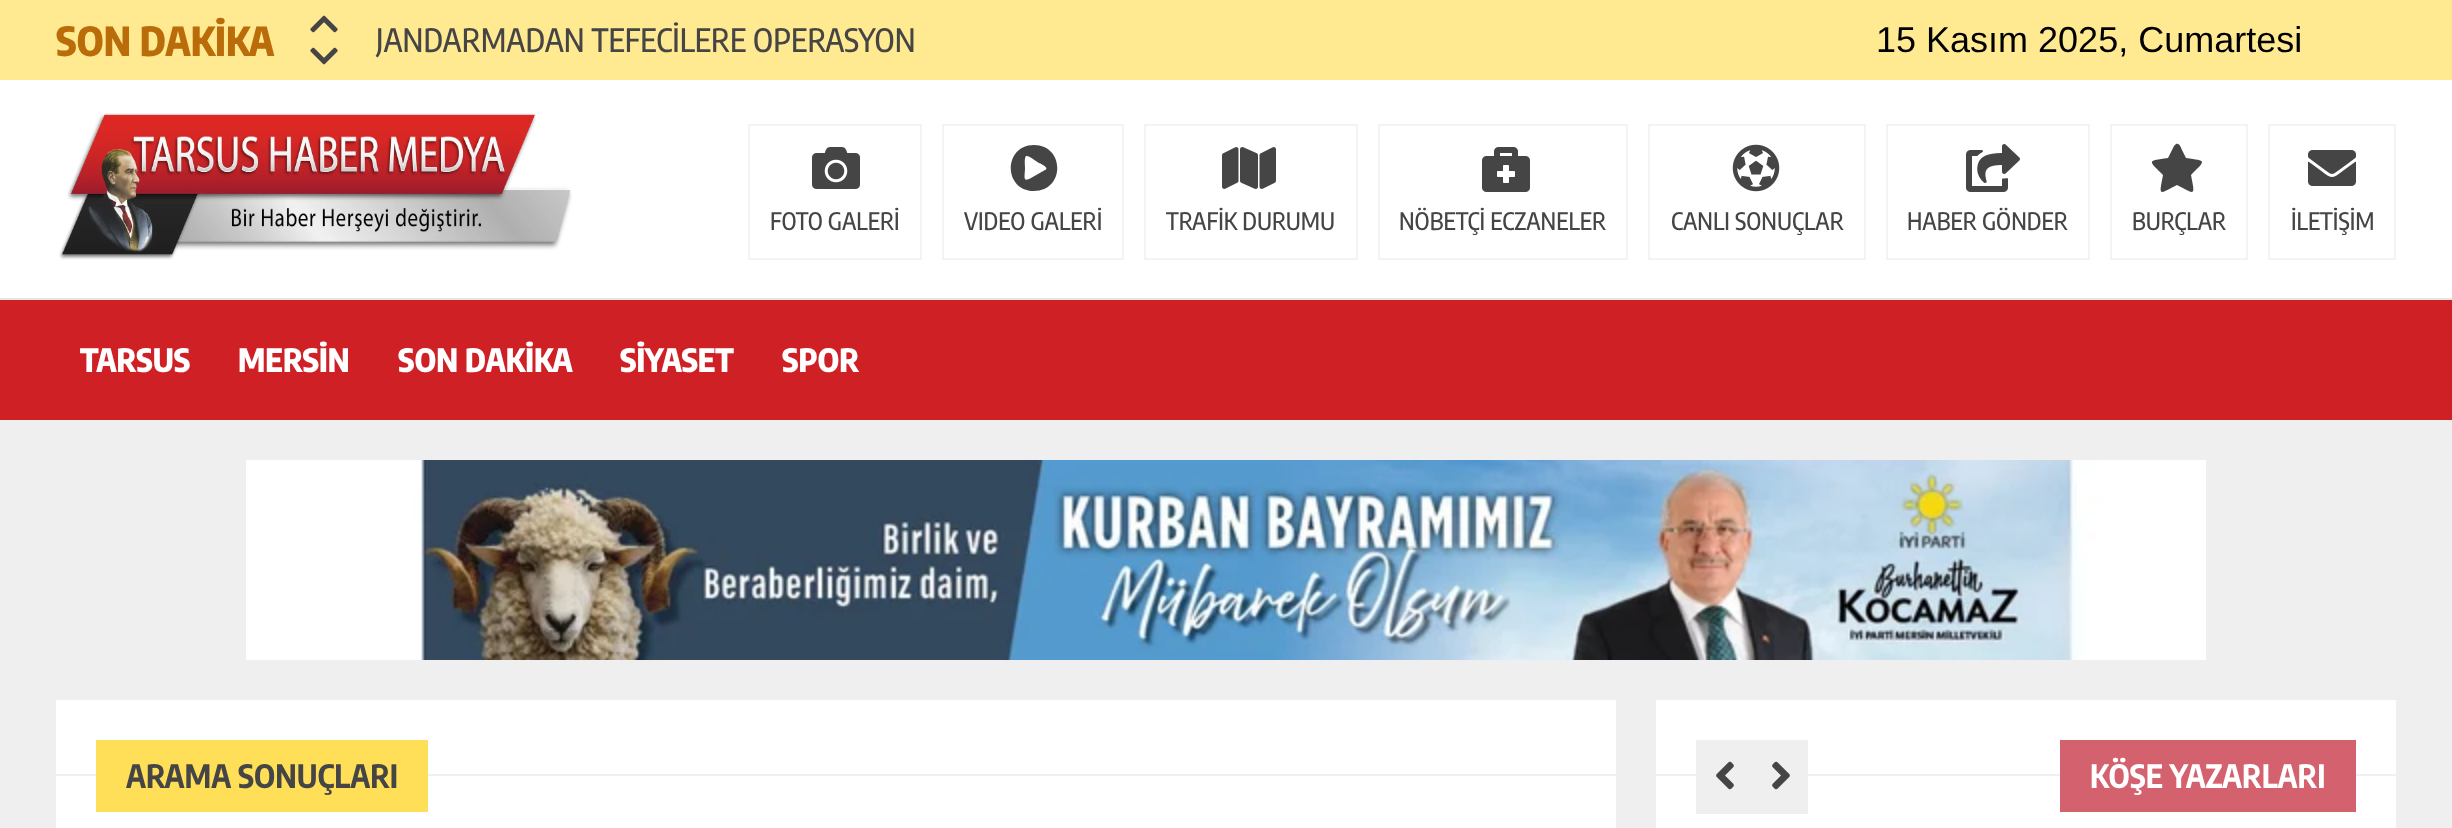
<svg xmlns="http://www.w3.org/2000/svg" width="2452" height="828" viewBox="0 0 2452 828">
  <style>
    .t1 { font: 800 40px Encode Sans Condensed; fill: #b96c09; }
    .t2 { font: 500 32px Encode Sans Condensed; fill: #454545; }
    .t3 { font: 36px Liberation Sans; fill: #000; }
    .t4 { font: 500 24px Encode Sans Condensed; fill: #454545; }
    .t5 { font: 800 32px Encode Sans Condensed; fill: #fff; }
    .t6 { font: bold 32px Encode Sans Condensed; fill: #454545; }
    .t7 { font: bold 32px Encode Sans Condensed; fill: #fff; }
  </style>
  <rect width="100%" height="100%" fill="#efefef"/>
  <rect x="0" y="0" width="2452" height="80" fill="#ffe991"/>
  <text x="56" y="56" class="t1">SON DAKİKA</text>
  <image x="310" y="15" width="28" height="18" href="images/1.png"/>
  <image x="310" y="47" width="28" height="18" href="images/2.png"/>
  <text x="376" y="52" class="t2">JANDARMADAN TEFECİLERE OPERASYON</text>
  <text x="1876" y="52" class="t3">15 Kasım 2025, Cumartesi</text>
  <rect x="0" y="80" width="2452" height="218" fill="#fff"/>
  <rect x="0" y="298" width="2452" height="2" fill="#e6e6e6"/>
  <image x="59" y="113" width="513" height="147" href="images/3.png"/>
  <image x="812" y="147" width="48" height="42" href="images/4.png"/>
  <rect x="749" y="125" width="172" height="134" fill="none" stroke="#f3f3f3" stroke-width="2"/>
  <text x="770" y="230" class="t4">FOTO GALERİ</text>
  <path d="M1034 145C1003 145 1003 191 1034 191C1065 191 1065 145 1034 145ZM1045 170L1031 178C1022 183 1025 176 1025 168C1025 166 1024 158 1026 156C1029 155 1037 162 1039 163C1040 163 1050 168 1045 170Z" fill="#454545"/>
  <rect x="943" y="125" width="180" height="134" fill="none" stroke="#f3f3f3" stroke-width="2"/>
  <text x="964" y="230" class="t4">VIDEO GALERİ</text>
  <image x="1222" y="147" width="54" height="42" href="images/5.png"/>
  <rect x="1145" y="125" width="212" height="134" fill="none" stroke="#f3f3f3" stroke-width="2"/>
  <text x="1166" y="230" class="t4">TRAFİK DURUMU</text>
  <image x="1482" y="147" width="48" height="45" href="images/6.png"/>
  <rect x="1379" y="125" width="248" height="134" fill="none" stroke="#f3f3f3" stroke-width="2"/>
  <text x="1399" y="230" class="t4">NÖBETÇİ ECZANELER</text>
  <image x="1732" y="144" width="48" height="48" href="images/7.png"/>
  <rect x="1649" y="125" width="216" height="134" fill="none" stroke="#f3f3f3" stroke-width="2"/>
  <text x="1671" y="230" class="t4">CANLI SONUÇLAR</text>
  <image x="1966" y="144" width="54" height="48" href="images/8.png"/>
  <rect x="1887" y="125" width="202" height="134" fill="none" stroke="#f3f3f3" stroke-width="2"/>
  <text x="1907" y="230" class="t4">HABER GÖNDER</text>
  <path d="M2174 146L2168 158C2147 161 2148 160 2163 175C2159 196 2158 195 2177 185C2196 195 2195 196 2191 175C2206 160 2207 161 2186 158L2182 150C2181 148 2180 143 2176 144Z" fill="#454545"/>
  <rect x="2111" y="125" width="136" height="134" fill="none" stroke="#f3f3f3" stroke-width="2"/>
  <text x="2132" y="230" class="t4">BURÇLAR</text>
  <image x="2308" y="150" width="48" height="36" href="images/9.png"/>
  <rect x="2269" y="125" width="126" height="134" fill="none" stroke="#f3f3f3" stroke-width="2"/>
  <text x="2291" y="230" class="t4">İLETİŞİM</text>
  <rect x="0" y="300" width="2452" height="120" fill="#ce2025"/>
  <text x="80" y="372" class="t5">TARSUS</text>
  <text x="238" y="372" class="t5">MERSİN</text>
  <text x="398" y="372" class="t5">SON DAKİKA</text>
  <text x="620" y="372" class="t5">SİYASET</text>
  <text x="782" y="372" class="t5">SPOR</text>
  <image x="246" y="460" width="1960" height="200" href="images/10.png"/>
  <rect x="56" y="700" width="1560" height="128" fill="#fff"/>
  <rect x="56" y="774" width="1560" height="2" fill="#efefef"/>
  <rect x="96" y="740" width="332" height="72" fill="#ffde58"/>
  <text x="126" y="788" class="t6">ARAMA SONUÇLARI</text>
  <rect x="1656" y="700" width="740" height="128" fill="#fff"/>
  <rect x="1656" y="774" width="740" height="2" fill="#efefef"/>
  <rect x="1696" y="740" width="112" height="74" fill="#efefef"/>
  <image x="1716" y="761" width="18" height="29" href="images/11.png"/>
  <image x="1772" y="761" width="18" height="29" href="images/12.png"/>
  <rect x="2060" y="740" width="296" height="72" fill="#d4616e"/>
  <text x="2090" y="788" class="t7">KÖŞE YAZARLARI</text>
</svg>
